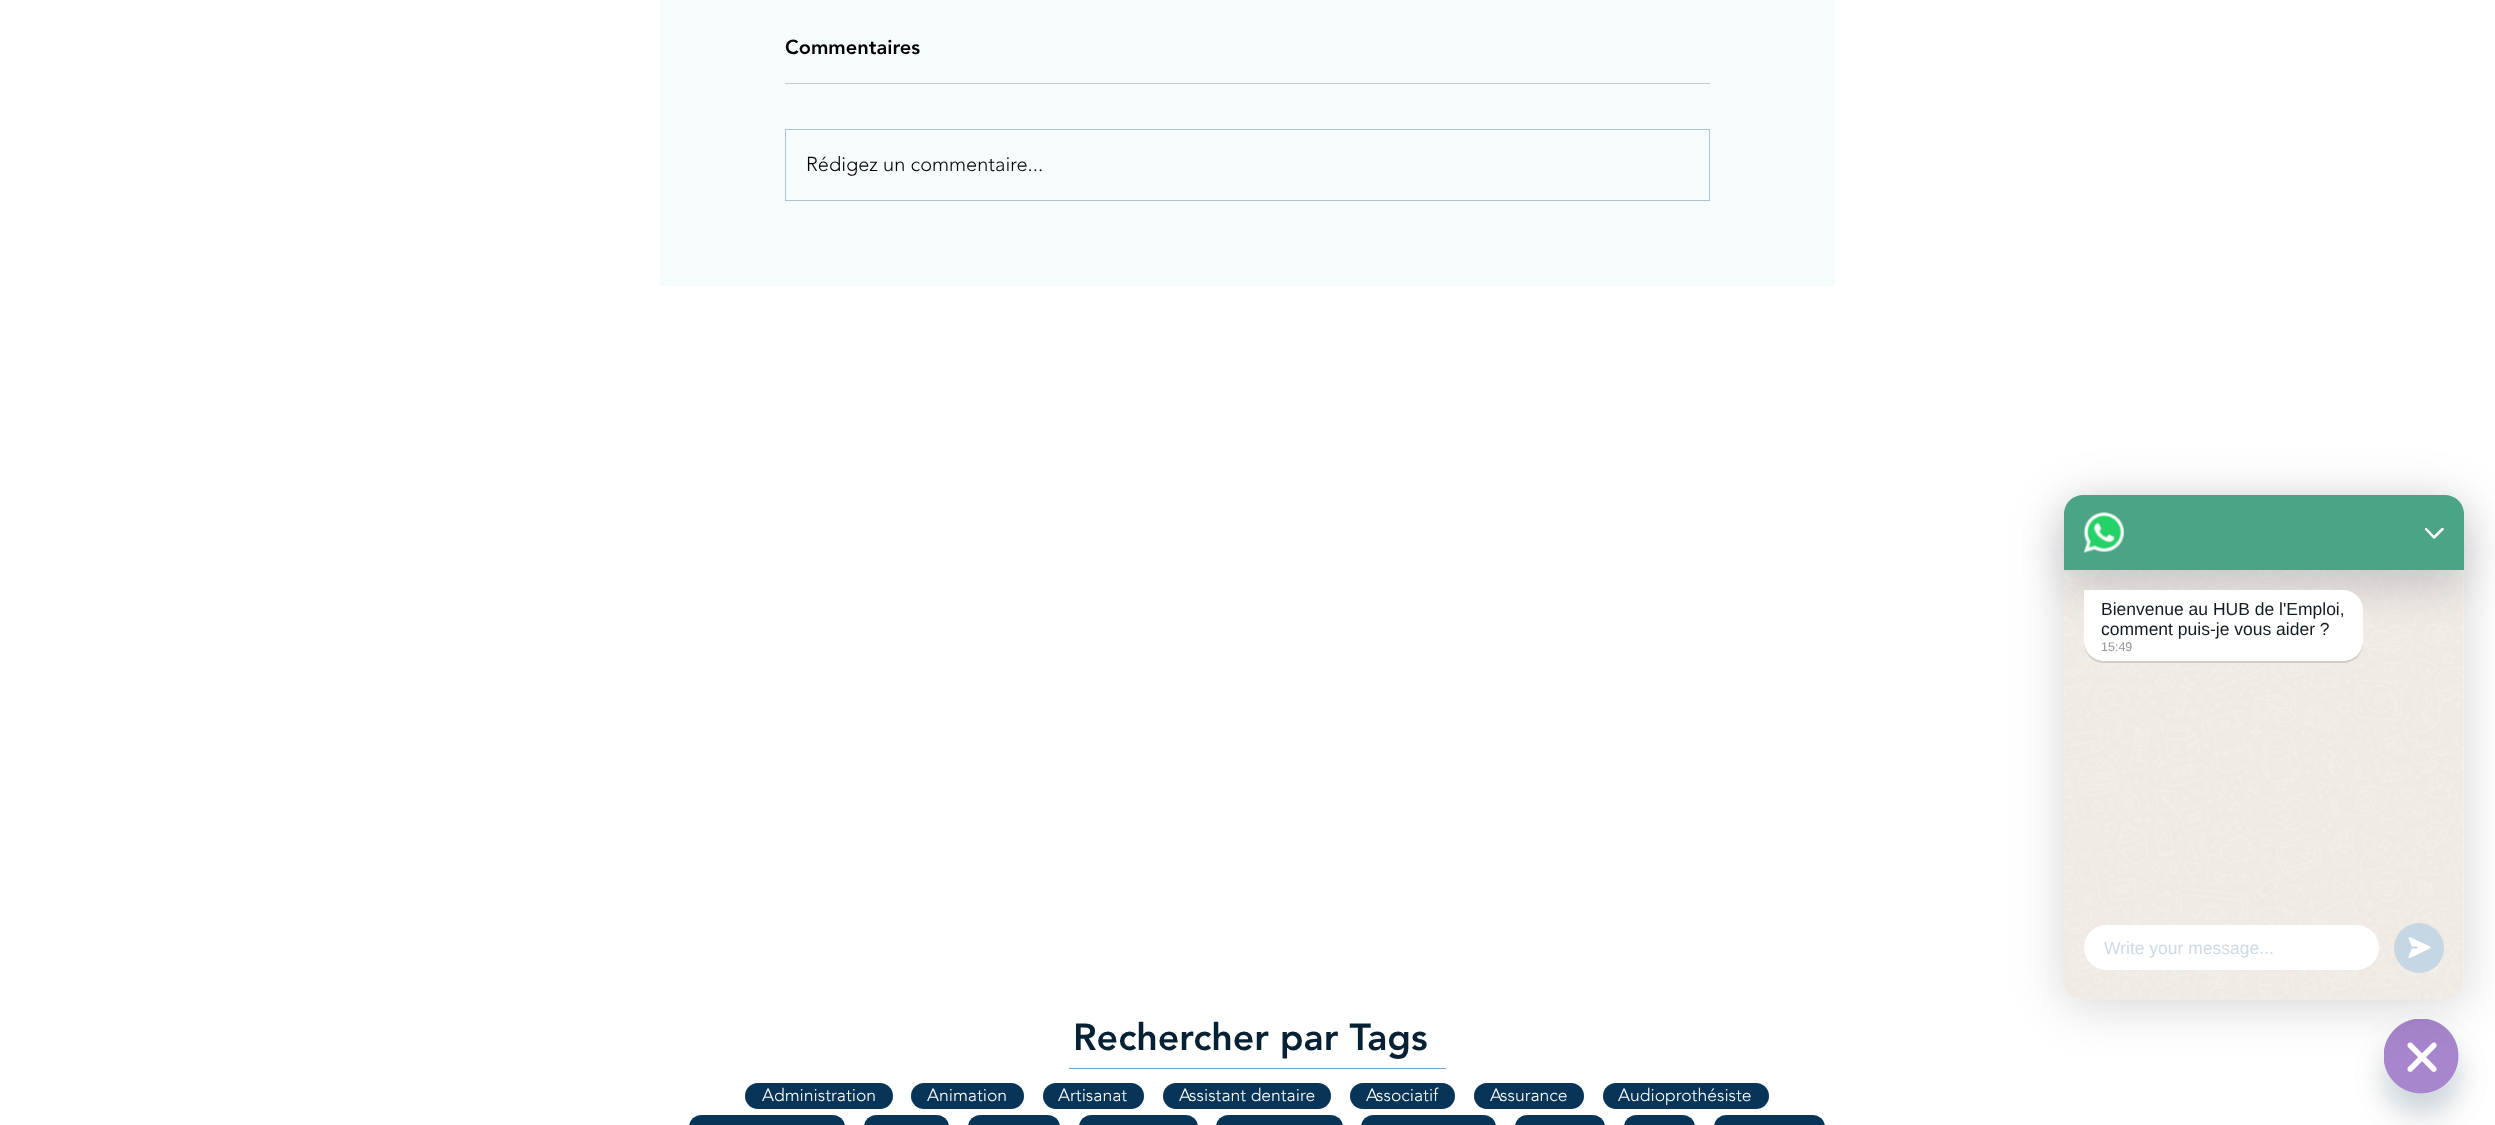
<svg xmlns="http://www.w3.org/2000/svg" width="2495" height="1125" viewBox="0 0 2495 1125">
  <style>
    .t1 { font: 900 20px 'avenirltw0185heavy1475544'; fill: #000; }
    .t2 { font: 300 20px 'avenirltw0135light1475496'; fill: #000; }
    .t3 { font: 900 37.5px 'avenirltw0185heavy1475544'; fill: #062134; }
    .t4 { font: 300 17.5px 'avenirltw0135light1475496'; fill: #fff; }
    .t5 { font: 17.5px Liberation Sans; fill: #111b21; }
    .t6 { font: 12.5px Liberation Sans; fill: #93939d; }
    .t7 { font: 17.5px Liberation Sans; fill: #cedae3; }
  </style>
  <defs>
    <clipPath id="clip1"><path d="M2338 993H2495V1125H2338ZM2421.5 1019C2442 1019 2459 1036 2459 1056.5C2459 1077 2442 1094 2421.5 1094C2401 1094 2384 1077 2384 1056.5C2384 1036 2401 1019 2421.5 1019Z" clip-rule="evenodd"/></clipPath>
    <clipPath id="clip2"><rect x="2425" y="528" width="19" height="11"/></clipPath>
  </defs>
  <rect width="100%" height="100%" fill="#fff"/>
  <rect x="660" y="0" width="1175" height="286" fill="#f6fbfe"/>
  <text x="785" y="54" class="t1">Commentaires</text>
  <rect x="785" y="83" width="925" height="1" fill="#c5c9cb"/>
  <rect x="785.5" y="129.5" width="924" height="71" fill="none" stroke="#b0c2cf"/>
  <text x="806" y="171" class="t2">Rédigez un commentaire...</text>
  <text x="1073" y="1050" class="t3">Rechercher par Tags</text>
  <rect x="1069" y="1068" width="377" height="1" fill="#6ea4ca"/>
  <rect x="745" y="1083" width="148" height="26" rx="13" fill="#083557"/>
  <rect x="745.5" y="1083.5" width="147" height="25" rx="12.5" fill="none" stroke="#0c3c6033"/>
  <text x="762" y="1101" class="t4">Administration</text>
  <rect x="911" y="1083" width="113" height="26" rx="13" fill="#083557"/>
  <rect x="911.5" y="1083.5" width="112" height="25" rx="12.5" fill="none" stroke="#0c3c6033"/>
  <text x="927" y="1101" class="t4">Animation</text>
  <rect x="1043" y="1083" width="101" height="26" rx="13" fill="#083557"/>
  <rect x="1043.5" y="1083.5" width="100" height="25" rx="12.5" fill="none" stroke="#0c3c6033"/>
  <text x="1058" y="1101" class="t4">Artisanat</text>
  <rect x="1163" y="1083" width="168" height="26" rx="13" fill="#083557"/>
  <rect x="1163.5" y="1083.5" width="167" height="25" rx="12.5" fill="none" stroke="#0c3c6033"/>
  <text x="1179" y="1101" class="t4">Assistant dentaire</text>
  <rect x="1350" y="1083" width="105" height="26" rx="13" fill="#083557"/>
  <rect x="1350.5" y="1083.5" width="104" height="25" rx="12.5" fill="none" stroke="#0c3c6033"/>
  <text x="1366" y="1101" class="t4">Associatif</text>
  <rect x="1474" y="1083" width="110" height="26" rx="13" fill="#083557"/>
  <rect x="1474.5" y="1083.5" width="109" height="25" rx="12.5" fill="none" stroke="#0c3c6033"/>
  <text x="1490" y="1101" class="t4">Assurance</text>
  <rect x="1603" y="1083" width="166" height="26" rx="13" fill="#083557"/>
  <rect x="1603.5" y="1083.5" width="165" height="25" rx="12.5" fill="none" stroke="#0c3c6033"/>
  <text x="1618" y="1101" class="t4">Audioprothésiste</text>
  <rect x="689" y="1115" width="156" height="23" rx="13" fill="#083557"/>
  <rect x="689.5" y="1115.5" width="155" height="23" rx="12.5" fill="none" stroke="#0c3c6033"/>
  <rect x="864" y="1115" width="85" height="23" rx="13" fill="#083557"/>
  <rect x="864.5" y="1115.5" width="84" height="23" rx="12.5" fill="none" stroke="#0c3c6033"/>
  <rect x="968" y="1115" width="92" height="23" rx="13" fill="#083557"/>
  <rect x="968.5" y="1115.5" width="91" height="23" rx="12.5" fill="none" stroke="#0c3c6033"/>
  <rect x="1079" y="1115" width="119" height="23" rx="13" fill="#083557"/>
  <rect x="1079.5" y="1115.5" width="118" height="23" rx="12.5" fill="none" stroke="#0c3c6033"/>
  <rect x="1216" y="1115" width="127" height="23" rx="13" fill="#083557"/>
  <rect x="1216.5" y="1115.5" width="126" height="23" rx="12.5" fill="none" stroke="#0c3c6033"/>
  <rect x="1361" y="1115" width="135" height="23" rx="13" fill="#083557"/>
  <rect x="1361.5" y="1115.5" width="134" height="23" rx="12.5" fill="none" stroke="#0c3c6033"/>
  <rect x="1515" y="1115" width="90" height="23" rx="13" fill="#083557"/>
  <rect x="1515.5" y="1115.5" width="89" height="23" rx="12.5" fill="none" stroke="#0c3c6033"/>
  <rect x="1624" y="1115" width="71" height="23" rx="13" fill="#083557"/>
  <rect x="1624.5" y="1115.5" width="70" height="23" rx="12.5" fill="none" stroke="#0c3c6033"/>
  <rect x="1714" y="1115" width="111" height="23" rx="13" fill="#083557"/>
  <rect x="1714.5" y="1115.5" width="110" height="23" rx="12.5" fill="none" stroke="#0c3c6033"/>
  <rect x="2384" y="1039" width="75" height="75" rx="37.5" fill="#49687e29" filter="blur(15px)"/>
  <image x="2384" y="1019" width="75" height="75" href="images/4.png"/>
  <rect x="2064" y="501" width="400" height="505" rx="19" fill="#00000029" filter="blur(25px)"/>
  <g clip-path="url(#clip1)">
    <rect x="2384" y="1039" width="75" height="75" rx="37.5" fill="#49687e29" filter="blur(15px)"/>
  </g>
  <rect x="2064" y="495" width="400" height="505" rx="19" fill="#fff"/>
  <image x="2063" y="495" width="401" height="505" href="images/2.png"/>
  <rect x="2064" y="515" width="400" height="75" rx="19" fill="#1a0e3529" filter="blur(20px)"/>
  <path d="M2083 495H2445C2455.5 495 2464 503.5 2464 514V570H2064V514C2064 503.5 2072.5 495 2083 495Z" fill="#4aa485"/>
  <image x="2083" y="512" width="41" height="41" href="images/1.png"/>
  <g clip-path="url(#clip2)">
    <path d="M2426 529L2434 537.5L2442.5 529" fill="none" stroke="#fff" stroke-width="2.5" stroke-linecap="round" stroke-linejoin="round"/>
  </g>
  <rect x="2084" y="591" width="279" height="72" rx="20" fill="#00000021" filter="blur(0.5px)"/>
  <path d="M2084 590H2343C2354 590 2363 599 2363 610V641C2363 652 2354 661 2343 661H2104C2093 661 2084 652 2084 641Z" fill="#fff"/>
  <text x="2101" y="615" class="t5">Bienvenue au HUB de l'Emploi,</text>
  <text x="2101" y="635" class="t5">comment puis-je vous aider ?</text>
  <text x="2101" y="651" class="t6">15:49</text>
  <rect x="2084" y="925" width="295" height="45" rx="22.5" fill="#fff"/>
  <text x="2104" y="954" class="t7">Write your message...</text>
  <circle cx="2419" cy="948" r="25" fill="#c6d7e3"/>
  <image x="2408" y="936" width="23" height="23" href="images/3.png"/>
</svg>
